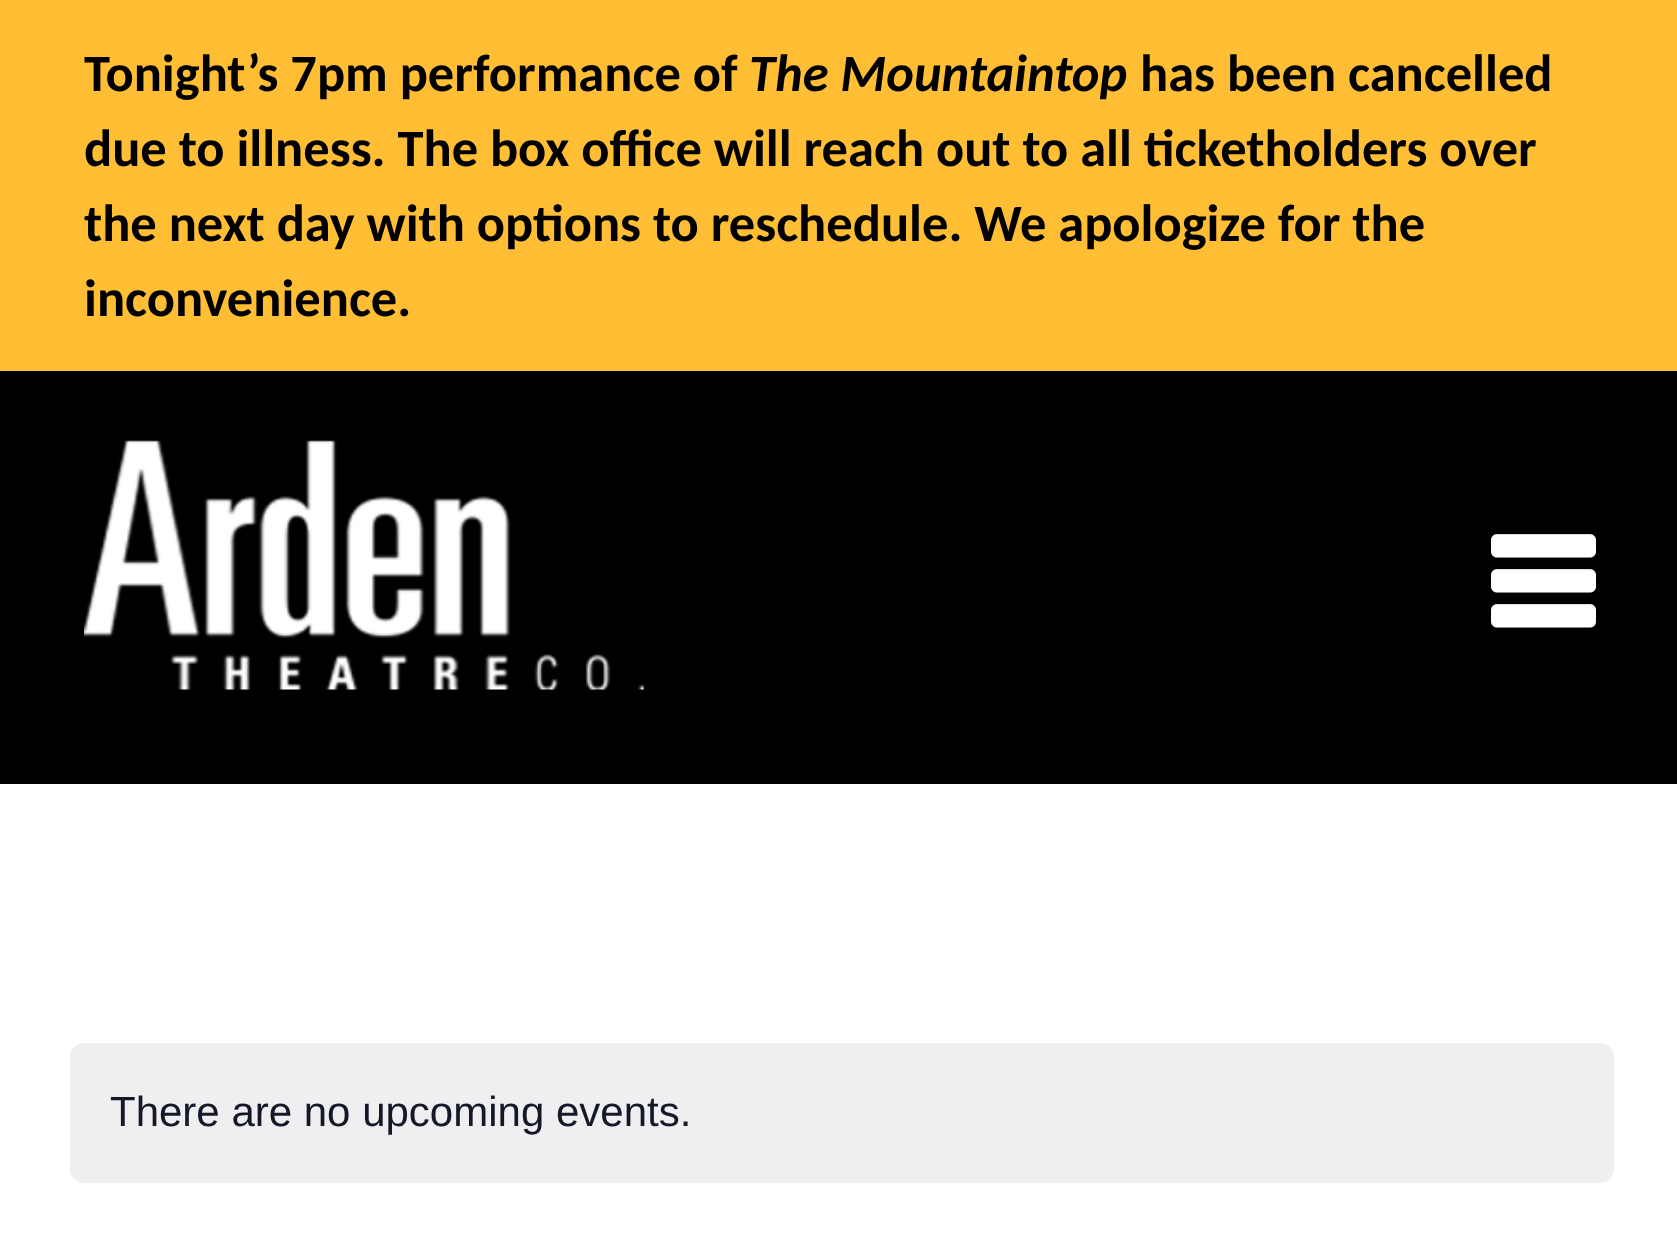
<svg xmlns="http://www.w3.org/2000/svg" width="1677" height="1244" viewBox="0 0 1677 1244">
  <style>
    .t1 { font: bold 52.5px Carlito; fill: #000; }
    .t2 { font: italic bold 52.5px Carlito; fill: #000; }
    .t3 { font: 42px Liberation Sans; fill: #141827; }
  </style>
  <rect width="100%" height="100%" fill="#fff"/>
  <rect x="0" y="0" width="1677" height="371" fill="#ffbe34"/>
  <text x="84" y="91" class="t1">Tonight’s 7pm performance of</text>
  <text x="749" y="91" class="t2">The Mountaintop</text>
  <text x="1140" y="91" class="t1">has been cancelled</text>
  <text x="84" y="166" class="t1">due to illness. The box office will reach out to all ticketholders over</text>
  <text x="84" y="241" class="t1">the next day with options to reschedule. We apologize for the</text>
  <text x="84" y="316" class="t1">inconvenience.</text>
  <rect x="0" y="371" width="1677" height="413" fill="#000"/>
  <image x="84" y="440" width="560" height="250" href="images/1.png"/>
  <image x="1491" y="534" width="105" height="94" href="images/2.png"/>
  <rect x="70" y="1043" width="1544" height="140" rx="14" fill="#efeff1"/>
  <text x="110" y="1126" class="t3">There are no upcoming events.</text>
</svg>
